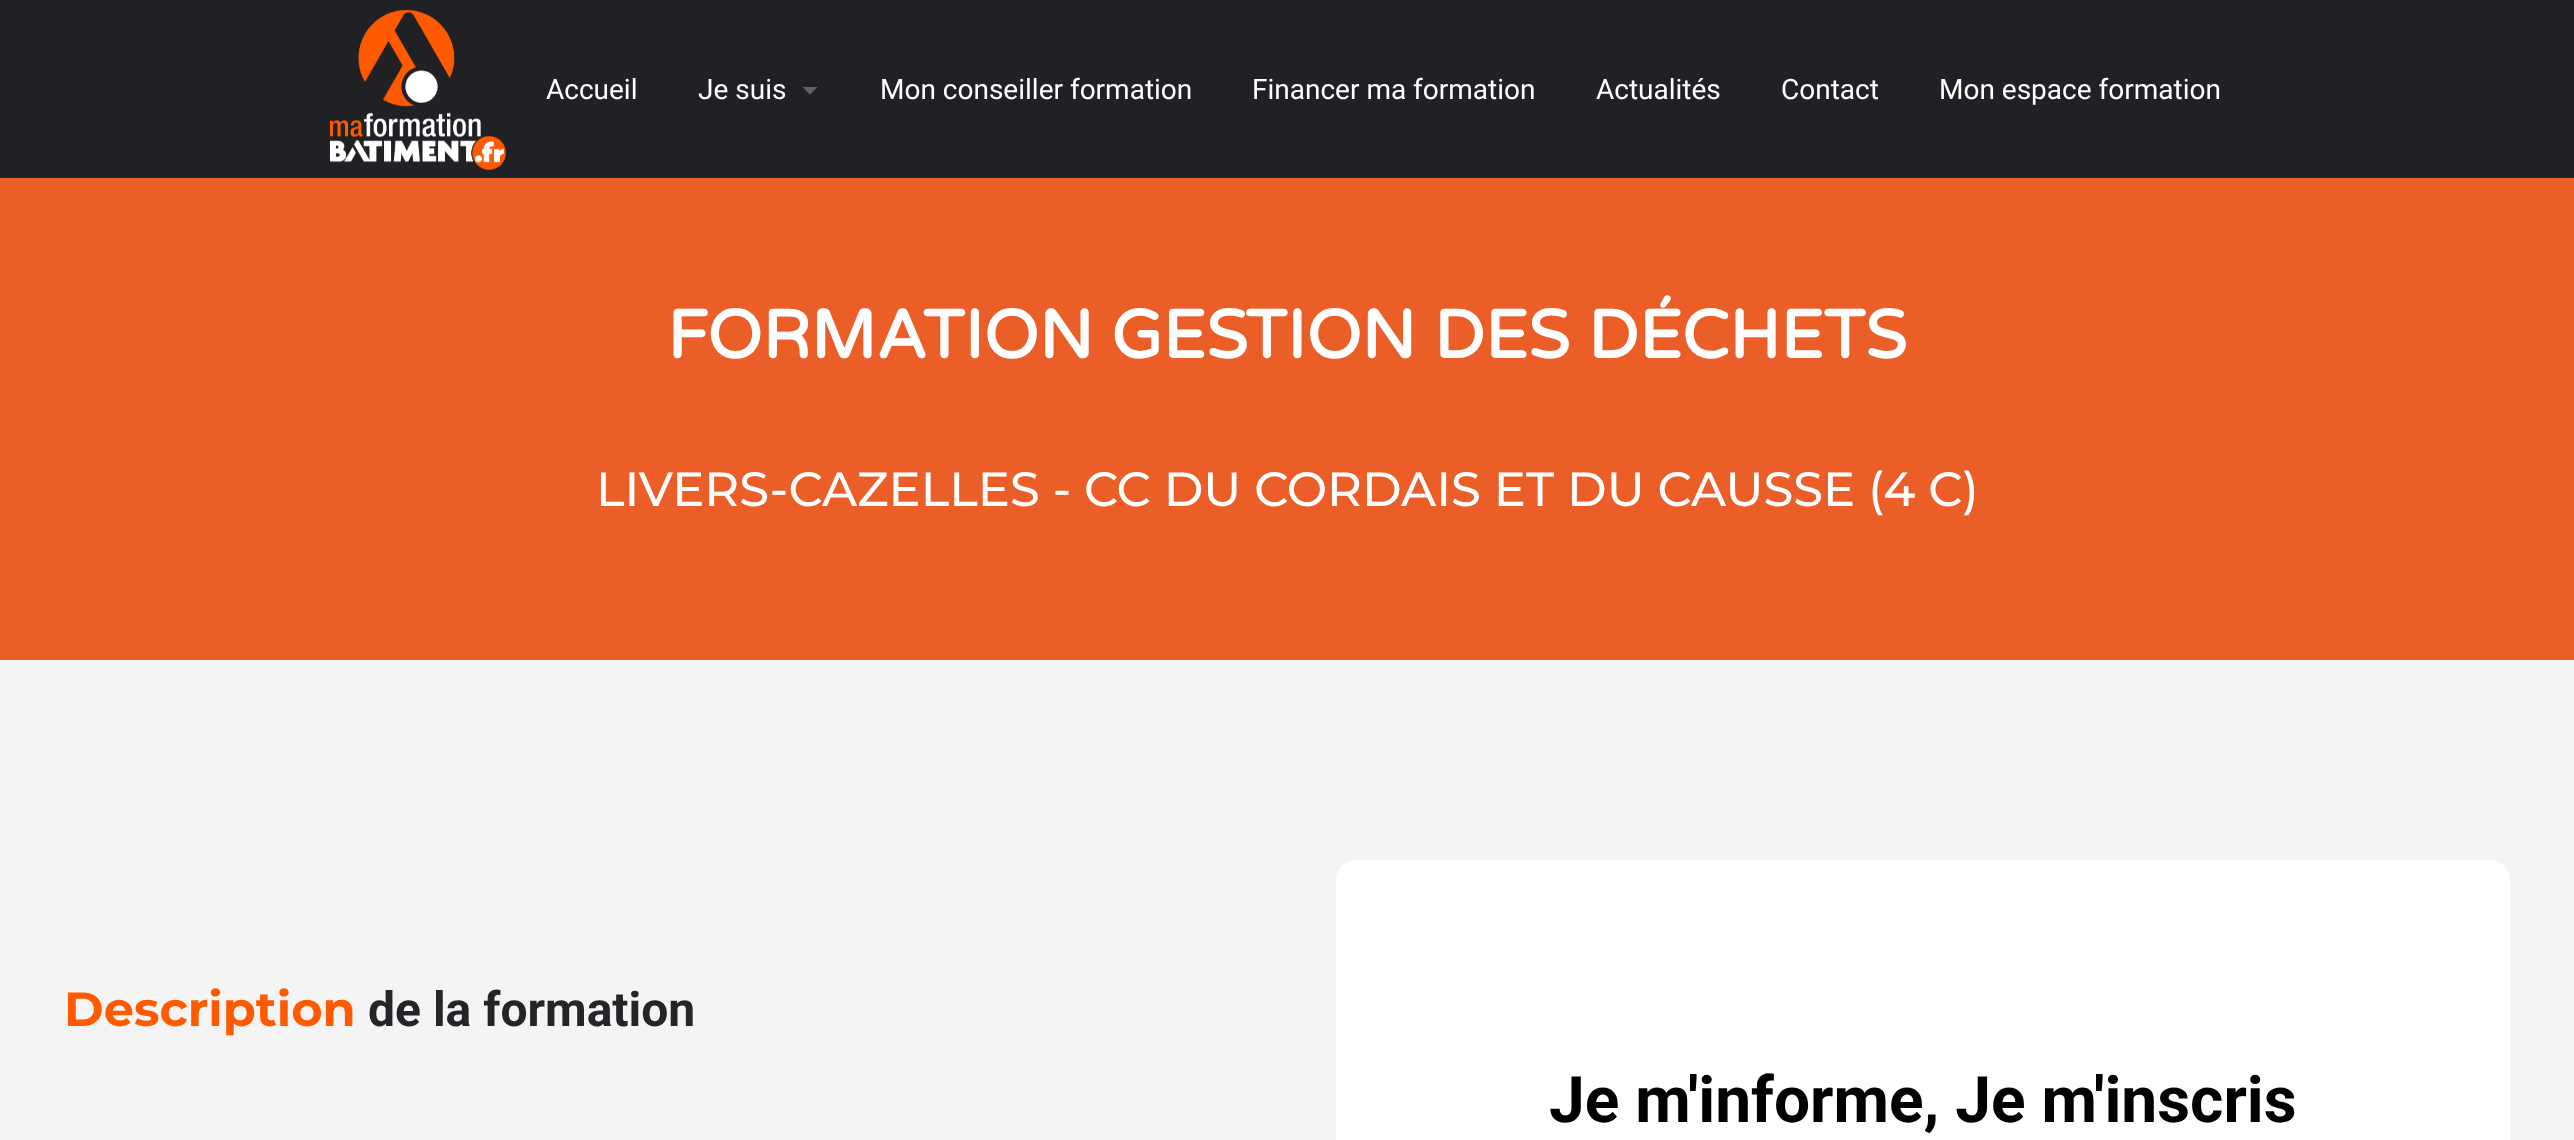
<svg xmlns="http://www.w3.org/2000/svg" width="2574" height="1140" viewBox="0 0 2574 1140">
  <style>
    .t1 { font: 28px Roboto; fill: #fff; }
    .t2 { font: bold 68px Varela Round; fill: #fff; }
    .t3 { font: 500 48px Montserrat; fill: #fff; }
    .t4 { font: bold 48px Montserrat; fill: #ff5a00; }
    .t5 { font: bold 48px Roboto; fill: #242429; }
    .t6 { font: bold 64px Roboto; fill: #000; }
  </style>
  <rect width="100%" height="100%" fill="#f4f4f4"/>
  <rect x="0" y="0" width="2574" height="178" fill="#202125"/>
  <image x="330" y="10" width="176" height="160" href="images/1.png"/>
  <text x="546" y="99" class="t1">Accueil</text>
  <text x="698" y="99" class="t1">Je suis</text>
  <path d="M802.5 87H817.5L810 94.5Z" fill="#636466"/>
  <text x="880" y="99" class="t1">Mon conseiller formation</text>
  <text x="1252" y="99" class="t1">Financer ma formation</text>
  <text x="1596" y="99" class="t1">Actualités</text>
  <text x="1781" y="99" class="t1">Contact</text>
  <text x="1939" y="99" class="t1">Mon espace formation</text>
  <rect x="0" y="178" width="2574" height="482" fill="#eb5e28"/>
  <text x="667" y="358" class="t2">FORMATION GESTION DES DÉCHETS</text>
  <text x="596" y="506" class="t3">LIVERS-CAZELLES - CC DU CORDAIS ET DU CAUSSE (4 C)</text>
  <text x="64" y="1026" class="t4">Description</text>
  <text x="368" y="1026" class="t5">de la formation</text>
  <rect x="1336" y="860" width="1174" height="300" rx="20" fill="#fff"/>
  <text x="1549" y="1122" class="t6">Je m'informe, Je m'inscris</text>
</svg>
